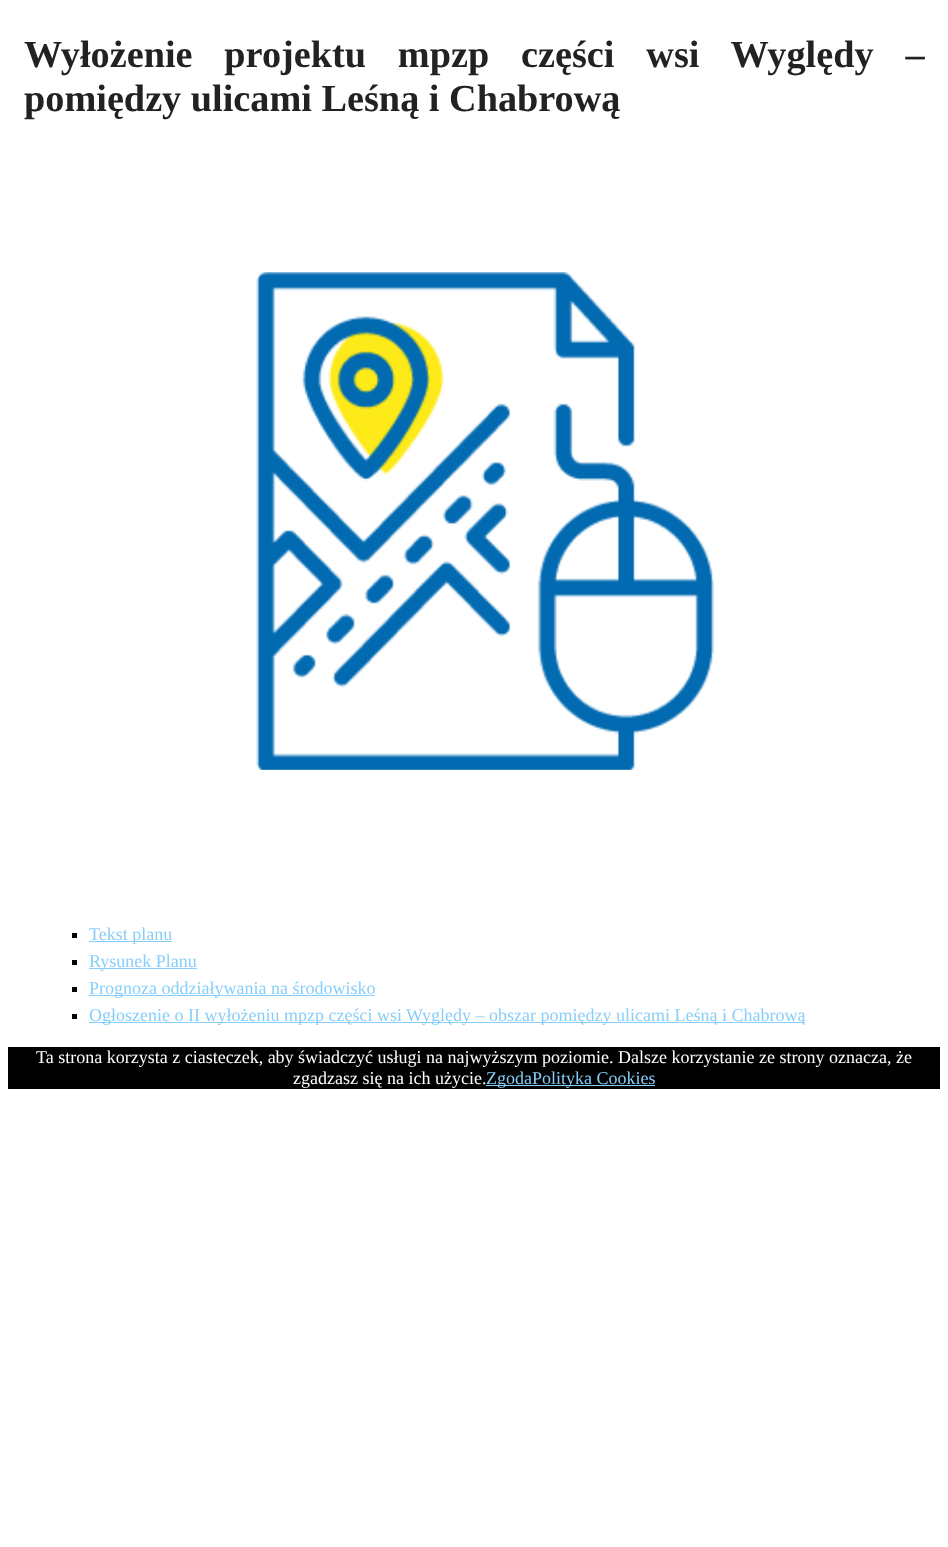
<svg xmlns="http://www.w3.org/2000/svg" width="948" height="1547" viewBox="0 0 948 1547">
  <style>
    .t1 { font: bold 38.25px Liberation Serif; fill: #222; }
    .t2 { font: 18px Liberation Serif; fill: #87cefa; }
    .t3 { font: 18px Liberation Serif; fill: #fff; }
  </style>
  <rect width="100%" height="100%" fill="#fff"/>
  <text x="24" y="67" word-spacing="22.25" class="t1">Wyłożenie projektu mpzp części wsi Wyględy –</text>
  <text x="24" y="111" class="t1">pomiędzy ulicami Leśną i Chabrową</text>
  <image x="256" y="272" width="459" height="498" href="images/1.png"/>
  <rect x="72" y="933" width="5" height="5" fill="#000"/>
  <rect x="89" y="941" width="83" height="1" fill="#87cefa"/>
  <text x="89" y="940" class="t2">Tekst planu</text>
  <rect x="72" y="960" width="5" height="5" fill="#000"/>
  <rect x="89" y="968" width="108" height="1" fill="#87cefa"/>
  <text x="89" y="967" class="t2">Rysunek Planu</text>
  <rect x="72" y="987" width="5" height="5" fill="#000"/>
  <rect x="89" y="995" width="286" height="1" fill="#87cefa"/>
  <text x="89" y="994" class="t2">Prognoza oddziaływania na środowisko</text>
  <rect x="72" y="1014" width="5" height="5" fill="#000"/>
  <rect x="89" y="1022" width="716" height="1" fill="#87cefa"/>
  <text x="89" y="1021" class="t2">Ogłoszenie o II wyłożeniu mpzp części wsi Wyględy – obszar pomiędzy ulicami Leśną i Chabrową</text>
  <rect x="8" y="1047" width="932" height="42" fill="#000"/>
  <text x="36" y="1063" class="t3">Ta strona korzysta z ciasteczek, aby świadczyć usługi na najwyższym poziomie. Dalsze korzystanie ze strony oznacza, że</text>
  <text x="293" y="1084" class="t3">zgadzasz się na ich użycie.</text>
  <rect x="486" y="1085" width="169" height="1" fill="#87cefa"/>
  <text x="486" y="1084" class="t2">ZgodaPolityka Cookies</text>
</svg>
